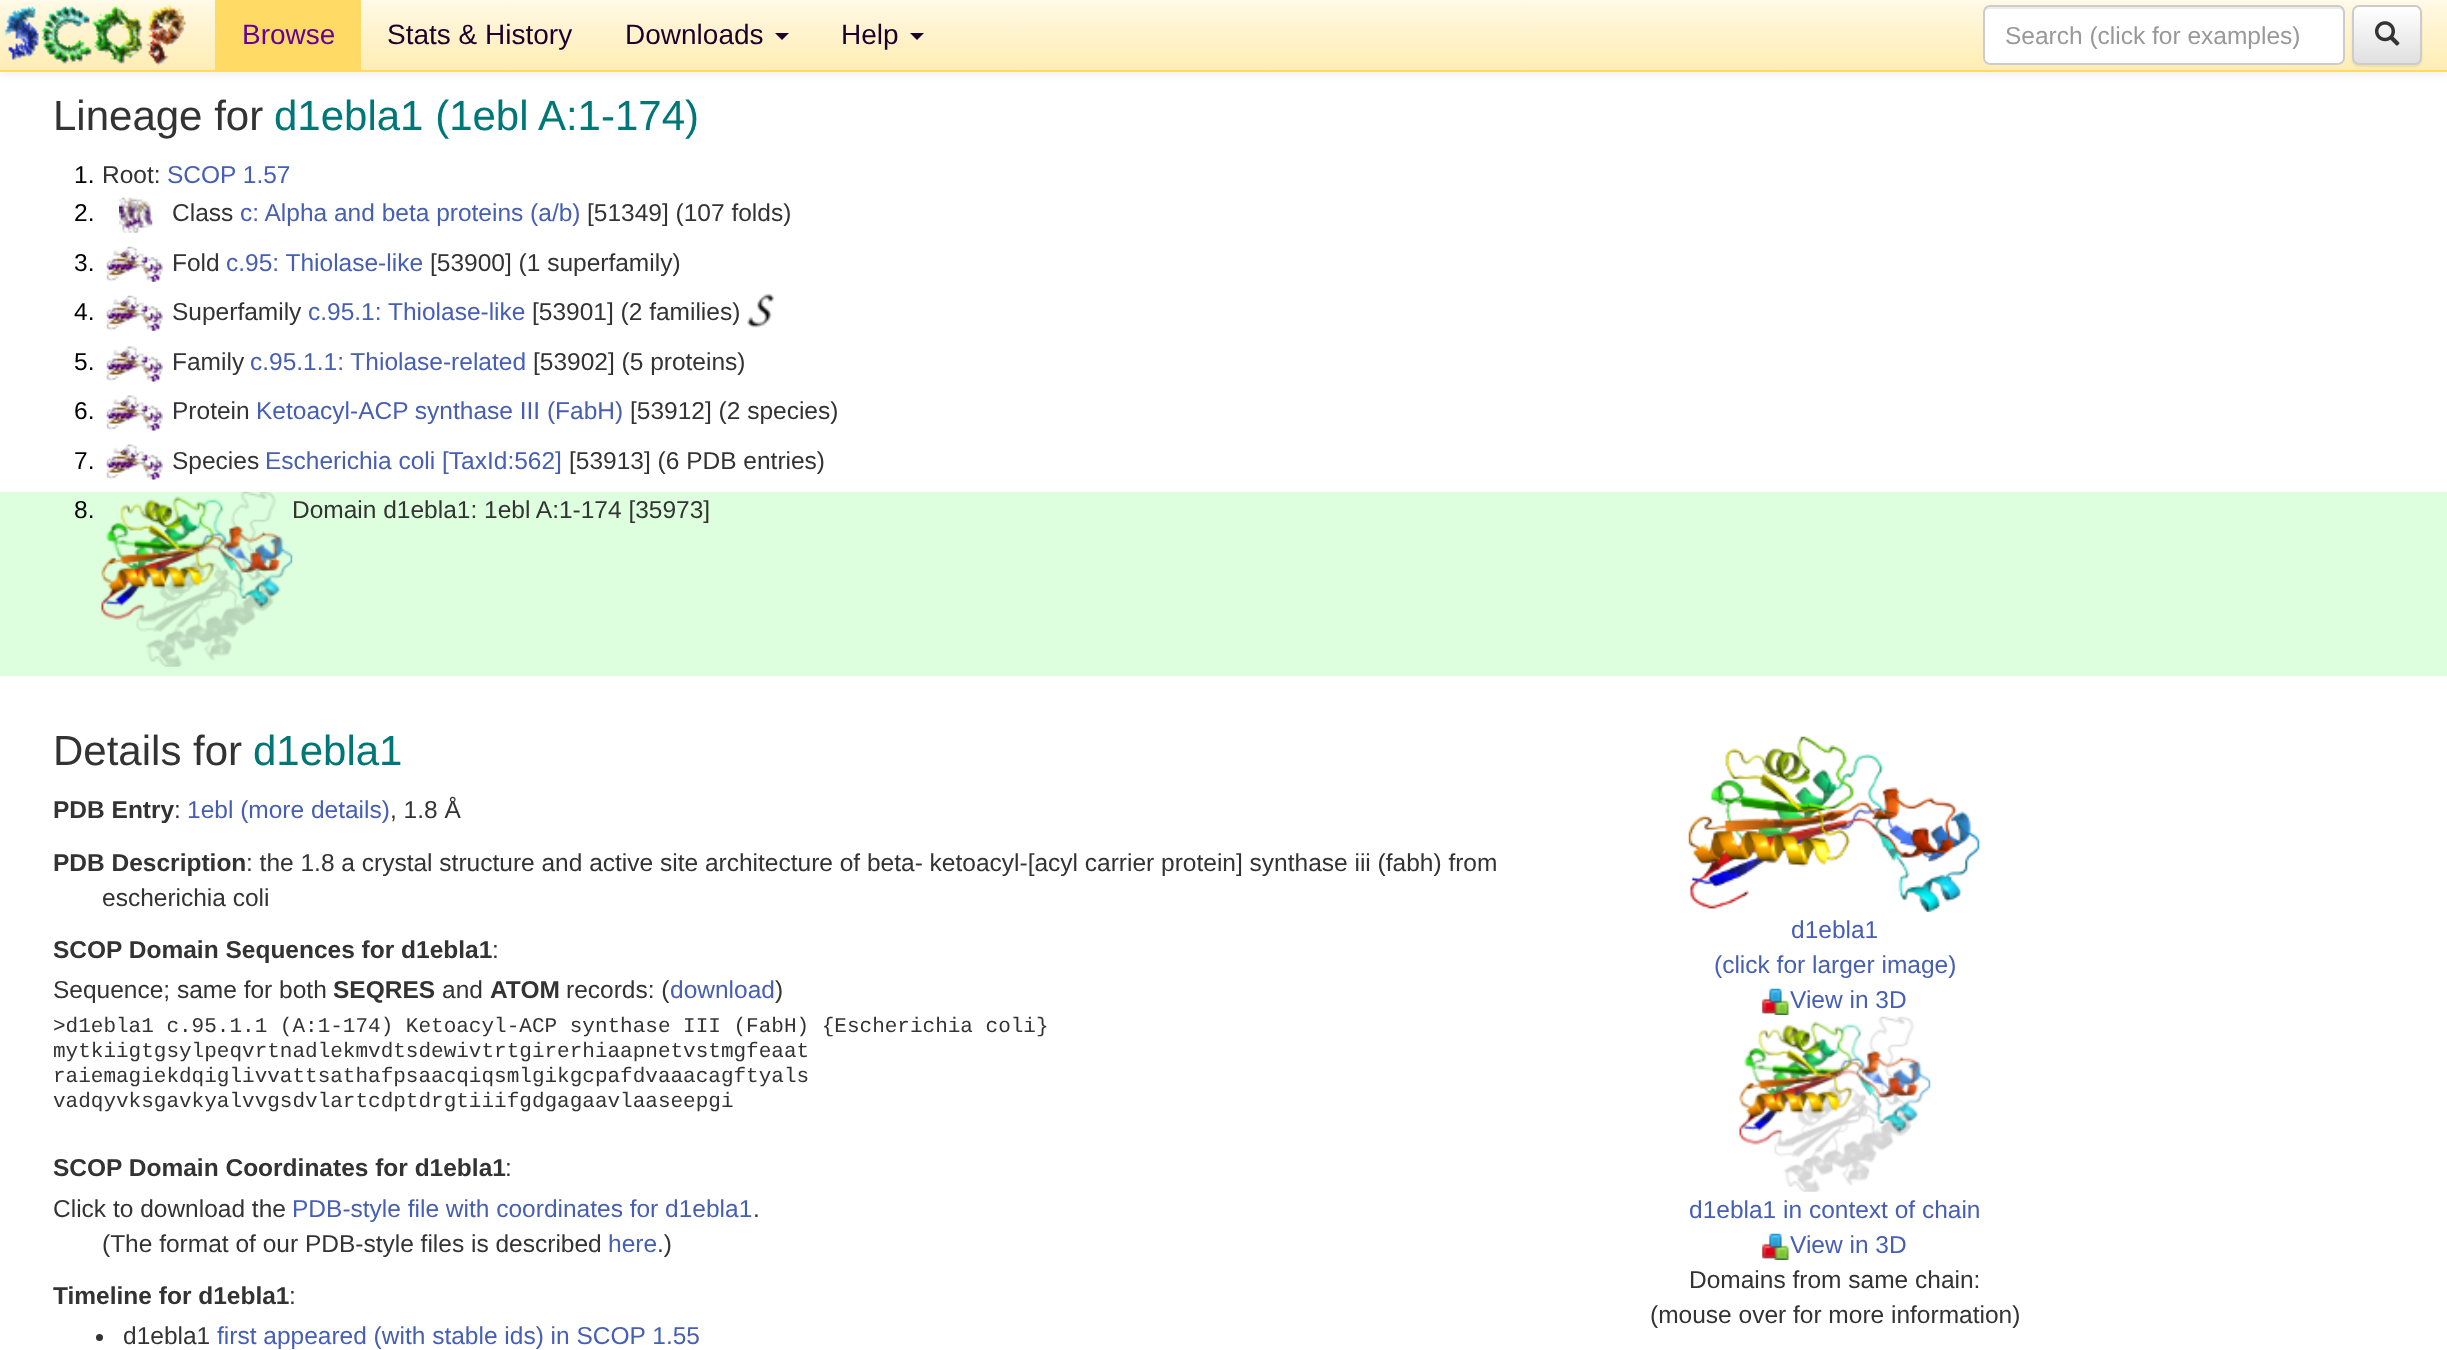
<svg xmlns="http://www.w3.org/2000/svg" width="2447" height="1350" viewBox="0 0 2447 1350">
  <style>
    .t1 { font: 28px Liberation Sans; fill: #609; }
    .t2 { font: 28px Liberation Sans; fill: #1d002b; }
    .t3 { font: 24.5px Liberation Sans; fill: #999; }
    .t4 { font: 42px Liberation Sans; fill: #333; }
    .t5 { font: 42px Liberation Sans; fill: #077; }
    .t6 { font: 24.5px Liberation Sans; fill: #000; }
    .t7 { font: 24.5px Liberation Sans; fill: #333; }
    .t8 { font: 24.5px Liberation Sans; fill: #465eb4; }
    .t9 { font: bold 24.5px Liberation Sans; fill: #333; }
    .t10 { font: 21px Liberation Mono; fill: #333; }
  </style>
  <defs>
    <linearGradient id="g1" gradientUnits="userSpaceOnUse" x1="1224" y1="0" x2="1224" y2="70"><stop offset="0" stop-color="#fff9e6"/><stop offset="1" stop-color="#ffedb3"/></linearGradient>
    <clipPath id="clip1"><rect x="2006" y="21" width="316" height="28"/></clipPath>
    <clipPath id="clip2"><rect x="2352" y="5" width="70" height="60" rx="7"/></clipPath>
    <linearGradient id="g2" gradientUnits="userSpaceOnUse" x1="2387" y1="7" x2="2387" y2="63"><stop offset="0" stop-color="#fff"/><stop offset="1" stop-color="#e0e0e0"/></linearGradient>
  </defs>
  <rect width="100%" height="100%" fill="#fff"/>
  <rect x="0" y="2" width="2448" height="72" fill="#00000012" filter="blur(4.5px)"/>
  <rect x="0" y="2" width="2447" height="68" fill="url(#g1)"/>
  <rect x="0" y="0" width="2447" height="2" fill="#fffae9"/>
  <rect x="0" y="70" width="2447" height="2" fill="#ffda65"/>
  <image x="4" y="4" width="182" height="62" href="images/1.png"/>
  <rect x="215" y="0" width="146" height="70" fill="#ffda65"/>
  <text x="242" y="44" class="t1">Browse</text>
  <text x="387" y="44" class="t2">Stats &amp; History</text>
  <text x="625" y="44" class="t2">Downloads</text>
  <path d="M775 33H789L782 40Z" fill="#1d002b"/>
  <text x="841" y="44" class="t2">Help</text>
  <path d="M910 33H924L917 40Z" fill="#1d002b"/>
  <rect x="1983" y="5" width="362" height="60" rx="7" fill="#fff"/>
  <path d="M1990 9H2338C2341 9 2343 11 2343 14C2343 11 2342 7 2338 7H1990C1988 7 1985 9 1985 11C1986 10 1988 9 1990 9Z" fill="#ececec"/>
  <rect x="1984" y="6" width="360" height="58" rx="6" fill="none" stroke="#ccc" stroke-width="2"/>
  <g clip-path="url(#clip1)">
    <text x="2005" y="44" class="t3">Search (click for examples)</text>
  </g>
  <rect x="2352" y="7" width="70" height="60" rx="7" fill="#00000012" filter="blur(1px)"/>
  <g clip-path="url(#clip2)">
    <rect x="2352" y="7" width="70" height="56" fill="url(#g2)"/>
  </g>
  <rect x="2353" y="6" width="68" height="58" rx="6" fill="none" stroke="#ccc" stroke-width="2"/>
  <image x="2374" y="21" width="26" height="25" href="images/2.png"/>
  <text x="53" y="130" class="t4">Lineage for</text>
  <text x="274" y="130" class="t5">d1ebla1 (1ebl A:1-174)</text>
  <text x="74" y="183" class="t6">1.</text>
  <text x="102" y="183" class="t7">Root:</text>
  <text x="167" y="183" class="t8">SCOP 1.57</text>
  <text x="74" y="221" class="t6">2.</text>
  <image x="119" y="197" width="34" height="36" href="images/3.png"/>
  <text x="172" y="221" class="t7">Class</text>
  <text x="240" y="221" class="t8">c: Alpha and beta proteins (a/b)</text>
  <text x="587" y="221" class="t7">[51349] (107 folds)</text>
  <text x="74" y="271" class="t6">3.</text>
  <image x="106" y="246" width="57" height="36" href="images/4.png"/>
  <text x="172" y="271" class="t7">Fold</text>
  <text x="226" y="271" class="t8">c.95: Thiolase-like</text>
  <text x="430" y="271" class="t7">[53900] (1 superfamily)</text>
  <text x="74" y="320" class="t6">4.</text>
  <image x="106" y="295" width="57" height="36" href="images/4.png"/>
  <text x="172" y="320" class="t7">Superfamily</text>
  <text x="308" y="320" class="t8">c.95.1: Thiolase-like</text>
  <text x="532" y="320" class="t7">[53901] (2 families)</text>
  <image x="747" y="294" width="27" height="34" href="images/5.png"/>
  <text x="74" y="370" class="t6">5.</text>
  <image x="106" y="346" width="57" height="36" href="images/6.png"/>
  <text x="172" y="370" class="t7">Family</text>
  <text x="250" y="370" class="t8">c.95.1.1: Thiolase-related</text>
  <text x="533" y="370" class="t7">[53902] (5 proteins)</text>
  <text x="74" y="419" class="t6">6.</text>
  <image x="106" y="395" width="57" height="36" href="images/6.png"/>
  <text x="172" y="419" class="t7">Protein</text>
  <text x="256" y="419" class="t8">Ketoacyl-ACP synthase III (FabH)</text>
  <text x="630" y="419" class="t7">[53912] (2 species)</text>
  <text x="74" y="469" class="t6">7.</text>
  <image x="106" y="444" width="57" height="36" href="images/6.png"/>
  <text x="172" y="469" class="t7">Species</text>
  <text x="265" y="469" class="t8">Escherichia coli [TaxId:562]</text>
  <text x="569" y="469" class="t7">[53913] (6 PDB entries)</text>
  <rect x="0" y="492" width="2447" height="184" fill="#dfd"/>
  <text x="74" y="518" class="t6">8.</text>
  <image x="101" y="491" width="192" height="176" href="images/7.png"/>
  <text x="292" y="518" class="t7">Domain d1ebla1: 1ebl A:1-174 [35973]</text>
  <text x="53" y="765" class="t4">Details for</text>
  <text x="253" y="765" class="t5">d1ebla1</text>
  <text x="53" y="818" class="t9">PDB Entry</text>
  <text x="174" y="818" class="t7">:</text>
  <text x="187" y="818" class="t8">1ebl (more details)</text>
  <text x="390" y="818" class="t7">, 1.8 Å</text>
  <text x="53" y="871" class="t9">PDB Description</text>
  <text x="246" y="871" class="t7">: the 1.8 a crystal structure and active site architecture of beta- ketoacyl-[acyl carrier protein] synthase iii (fabh) from</text>
  <text x="102" y="906" class="t7">escherichia coli</text>
  <text x="53" y="958" class="t9">SCOP Domain Sequences for d1ebla1</text>
  <text x="492" y="958" class="t7">:</text>
  <text x="53" y="998" class="t7">Sequence; same for both</text>
  <text x="333" y="998" class="t9">SEQRES</text>
  <text x="442" y="998" class="t7">and</text>
  <text x="490" y="998" class="t9">ATOM</text>
  <text x="566" y="998" class="t7">records: (</text>
  <text x="670" y="998" class="t8">download</text>
  <text x="775" y="998" class="t7">)</text>
  <text x="53" y="1032" class="t10">&gt;d1ebla1 c.95.1.1 (A:1-174) Ketoacyl-ACP synthase III (FabH) {Escherichia coli}</text>
  <text x="53" y="1057" class="t10">mytkiigtgsylpeqvrtnadlekmvdtsdewivtrtgirerhiaapnetvstmgfeaat</text>
  <text x="53" y="1082" class="t10">raiemagiekdqiglivvattsathafpsaacqiqsmlgikgcpafdvaaacagftyals</text>
  <text x="53" y="1107" class="t10">vadqyvksgavkyalvvgsdvlartcdptdrgtiiifgdgagaavlaaseepgi</text>
  <text x="53" y="1176" class="t9">SCOP Domain Coordinates for d1ebla1</text>
  <text x="505" y="1176" class="t7">:</text>
  <text x="53" y="1217" class="t7">Click to download the</text>
  <text x="292" y="1217" class="t8">PDB-style file with coordinates for d1ebla1</text>
  <text x="753" y="1217" class="t7">.</text>
  <text x="102" y="1252" class="t7">(The format of our PDB-style files is described</text>
  <text x="608" y="1252" class="t8">here</text>
  <text x="657" y="1252" class="t7">.)</text>
  <text x="53" y="1304" class="t9">Timeline for d1ebla1</text>
  <text x="289" y="1304" class="t7">:</text>
  <circle cx="99.5" cy="1337.5" r="3.5" fill="#333"/>
  <text x="123" y="1344" class="t7">d1ebla1</text>
  <text x="217" y="1344" class="t8">first appeared (with stable ids) in SCOP 1.55</text>
  <image x="1688" y="736" width="292" height="176" href="images/8.png"/>
  <text x="1791" y="938" class="t8">d1ebla1</text>
  <text x="1714" y="973" class="t8">(click for larger image)</text>
  <image x="1762" y="988" width="27" height="27" href="images/9.png"/>
  <text x="1790" y="1008" class="t8">View in 3D</text>
  <image x="1739" y="1016" width="192" height="176" href="images/10.png"/>
  <text x="1689" y="1218" class="t8">d1ebla1 in context of chain</text>
  <image x="1762" y="1233" width="27" height="27" href="images/9.png"/>
  <text x="1790" y="1253" class="t8">View in 3D</text>
  <text x="1689" y="1288" class="t7">Domains from same chain:</text>
  <text x="1650" y="1323" class="t7">(mouse over for more information)</text>
</svg>
